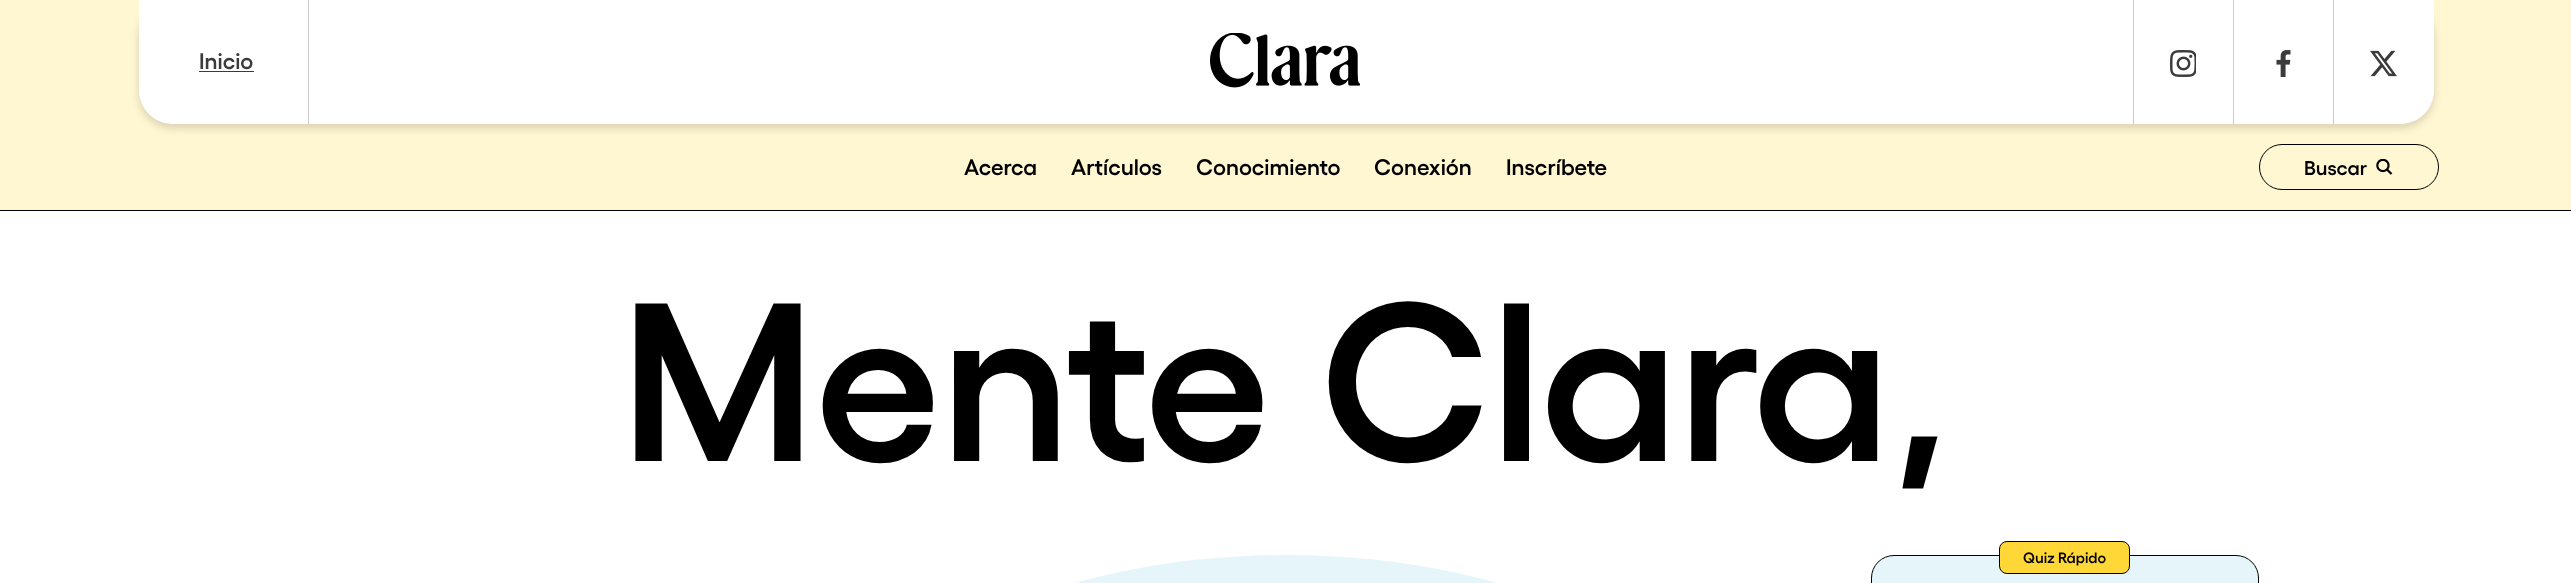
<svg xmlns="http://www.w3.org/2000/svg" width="2571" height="583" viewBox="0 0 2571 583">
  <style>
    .t1 { font: 600 22.5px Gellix; fill: #3b3b3b; }
    .t2 { font: 600 22.5px Gellix; fill: #000; }
    .t3 { font: 600 20px Gellix; fill: #000; }
    .t4 { font: 600 225px Gellix; fill: #000; }
    .t5 { font: 600 15px Gellix; fill: #000; }
  </style>
  <rect width="100%" height="100%" fill="#fff"/>
  <rect x="0" y="0" width="2571" height="210" fill="#fff6d2"/>
  <rect x="0" y="210" width="2571" height="1" fill="#000"/>
  <rect x="139" y="4" width="2295" height="124" rx="34" fill="#00000026" filter="blur(4px)"/>
  <path d="M139 0H2434V90C2434 109 2419 124 2400 124H173C154 124 139 109 139 90Z" fill="#fff"/>
  <rect x="308" y="0" width="1" height="124" fill="#ccc"/>
  <text x="199" y="69" class="t1">Inicio</text>
  <rect x="199" y="71" width="55" height="1" fill="#3b3b3b"/>
  <image x="1210" y="33" width="150" height="55" href="images/1.png"/>
  <rect x="2233" y="0" width="1" height="124" fill="#ccc"/>
  <rect x="2133" y="0" width="1" height="124" fill="#ccc"/>
  <image x="2170" y="50" width="26" height="27" href="images/2.png"/>
  <rect x="2333" y="0" width="1" height="124" fill="#ccc"/>
  <image x="2276" y="50" width="15" height="27" href="images/3.png"/>
  <image x="2370" y="50" width="27" height="27" href="images/4.png"/>
  <text x="964" y="175" class="t2">Acerca</text>
  <text x="1071" y="175" class="t2">Artículos</text>
  <text x="1196" y="175" class="t2">Conocimiento</text>
  <text x="1374" y="175" class="t2">Conexión</text>
  <text x="1506" y="175" class="t2">Inscríbete</text>
  <rect x="2259.5" y="144.5" width="179" height="45" rx="22.5" fill="none" stroke="#000"/>
  <text x="2304" y="175" class="t3">Buscar</text>
  <image x="2376" y="159" width="17" height="16" href="images/5.png"/>
  <text x="621" y="461" class="t4">Mente Clara,</text>
  <rect x="836" y="555" width="900" height="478" rx="450" fill="#e5f5f9"/>
  <rect x="1871.5" y="555.5" width="387" height="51" rx="22.5" fill="#e5f5f9" stroke="#000"/>
  <rect x="1999.5" y="541.5" width="130" height="32" rx="7.5" fill="#ffd736" stroke="#000"/>
  <text x="2023" y="563" class="t5">Quiz Rápido</text>
</svg>
